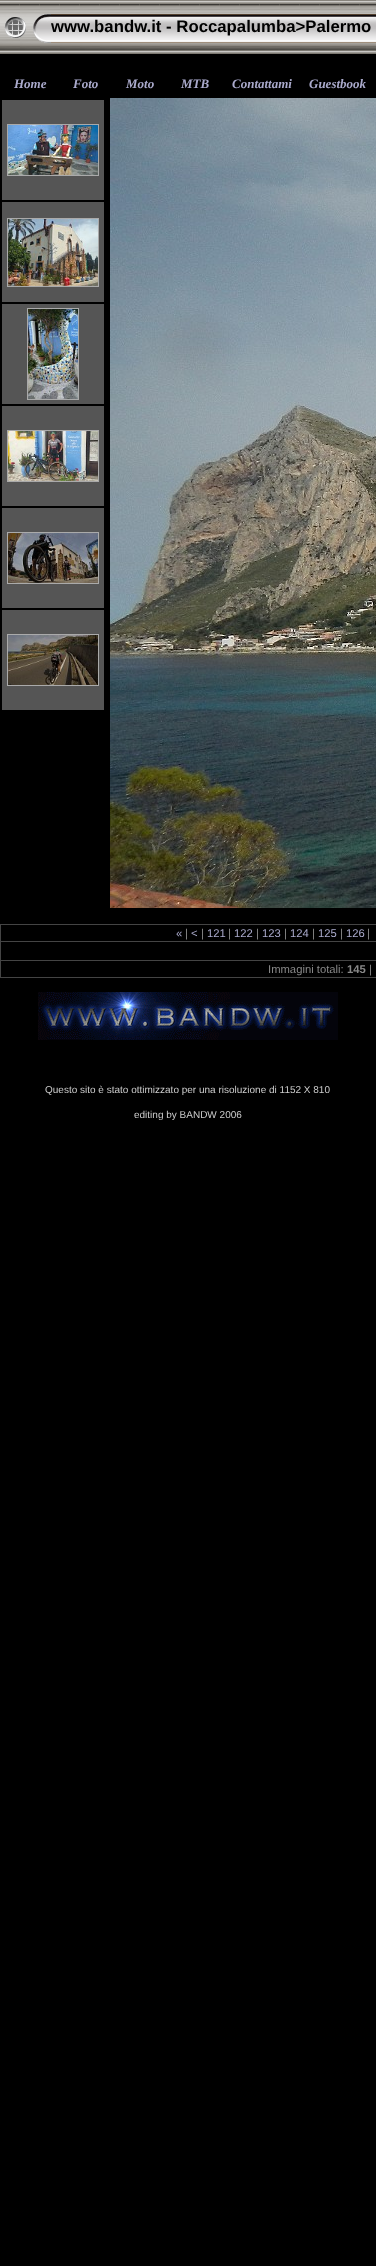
<svg xmlns="http://www.w3.org/2000/svg" width="376" height="2266" viewBox="0 0 376 2266">
  <style>
    .t1 { font: bold 16.75px Liberation Sans; fill: #000; }
    .t2 { font: italic bold 13px Liberation Serif; fill: #aac; }
    .t3 { font: 11.25px Liberation Sans; fill: #aac; }
    .t4 { font: 11.25px Liberation Sans; fill: #888; }
    .t5 { font: bold 11.25px Liberation Sans; fill: #888; }
    .t6 { font: 10px Liberation Sans; fill: #ccc; }
  </style>
  <rect width="100%" height="100%" fill="#000"/>
  <image x="0" y="0" width="376" height="54" href="images/1.png"/>
  <image x="4" y="17" width="22" height="21" href="images/2.png"/>
  <image x="33" y="14" width="18" height="29" href="images/3.png"/>
  <image x="51" y="14" width="325" height="29" href="images/4.png"/>
  <text x="51" y="32" class="t1">www.bandw.it - Roccapalumba&gt;Palermo</text>
  <text x="14" y="88" class="t2">Home</text>
  <text x="73" y="88" class="t2">Foto</text>
  <text x="126" y="88" class="t2">Moto</text>
  <text x="181" y="88" class="t2">MTB</text>
  <text x="232" y="88" class="t2">Contattami</text>
  <text x="309" y="88" class="t2">Guestbook</text>
  <rect x="2" y="100" width="102" height="100" fill="#555"/>
  <rect x="7.5" y="124.5" width="91" height="51" fill="none" stroke="#aaa"/>
  <image x="8" y="125" width="90" height="50" href="images/5.png"/>
  <rect x="2" y="202" width="102" height="100" fill="#555"/>
  <rect x="7.5" y="218.5" width="91" height="68" fill="none" stroke="#aaa"/>
  <image x="8" y="219" width="90" height="67" href="images/6.png"/>
  <rect x="2" y="304" width="102" height="100" fill="#555"/>
  <rect x="27.5" y="308.5" width="51" height="91" fill="none" stroke="#aaa"/>
  <image x="28" y="309" width="50" height="90" href="images/7.png"/>
  <rect x="2" y="406" width="102" height="100" fill="#555"/>
  <rect x="7.5" y="430.5" width="91" height="51" fill="none" stroke="#aaa"/>
  <image x="8" y="431" width="90" height="50" href="images/8.png"/>
  <rect x="2" y="508" width="102" height="100" fill="#555"/>
  <rect x="7.5" y="532.5" width="91" height="51" fill="none" stroke="#aaa"/>
  <image x="8" y="533" width="90" height="50" href="images/9.png"/>
  <rect x="2" y="610" width="102" height="100" fill="#555"/>
  <rect x="7.5" y="634.5" width="91" height="51" fill="none" stroke="#aaa"/>
  <image x="8" y="635" width="90" height="50" href="images/10.png"/>
  <image x="110" y="98" width="266" height="810" href="images/11.png"/>
  <rect x="0" y="924" width="376" height="1" fill="#444"/>
  <rect x="0" y="977" width="376" height="1" fill="#444"/>
  <rect x="0" y="924" width="1" height="54" fill="#444"/>
  <text x="176" y="937" class="t3">«</text>
  <text x="185" y="937" class="t4">|</text>
  <text x="191" y="937" class="t3">&lt;</text>
  <text x="201" y="937" class="t4">|</text>
  <text x="207" y="937" class="t3">121</text>
  <text x="228" y="937" class="t4">|</text>
  <text x="234" y="937" class="t3">122</text>
  <text x="256" y="937" class="t4">|</text>
  <text x="262" y="937" class="t3">123</text>
  <text x="284" y="937" class="t4">|</text>
  <text x="290" y="937" class="t3">124</text>
  <text x="312" y="937" class="t4">|</text>
  <text x="318" y="937" class="t3">125</text>
  <text x="340" y="937" class="t4">|</text>
  <text x="346" y="937" class="t3">126</text>
  <text x="367" y="937" class="t4">|</text>
  <rect x="0" y="941" width="376" height="1" fill="#444"/>
  <rect x="0" y="960" width="376" height="1" fill="#444"/>
  <text x="268" y="973" class="t4">Immagini totali:</text>
  <text x="347" y="973" class="t5">145</text>
  <text x="369" y="973" class="t4">|</text>
  <image x="38" y="992" width="300" height="48" href="images/12.png"/>
  <text x="45" y="1093" class="t6">Questo sito è stato ottimizzato per una risoluzione di 1152 X 810</text>
  <text x="134" y="1118" class="t6">editing by BANDW 2006</text>
</svg>
